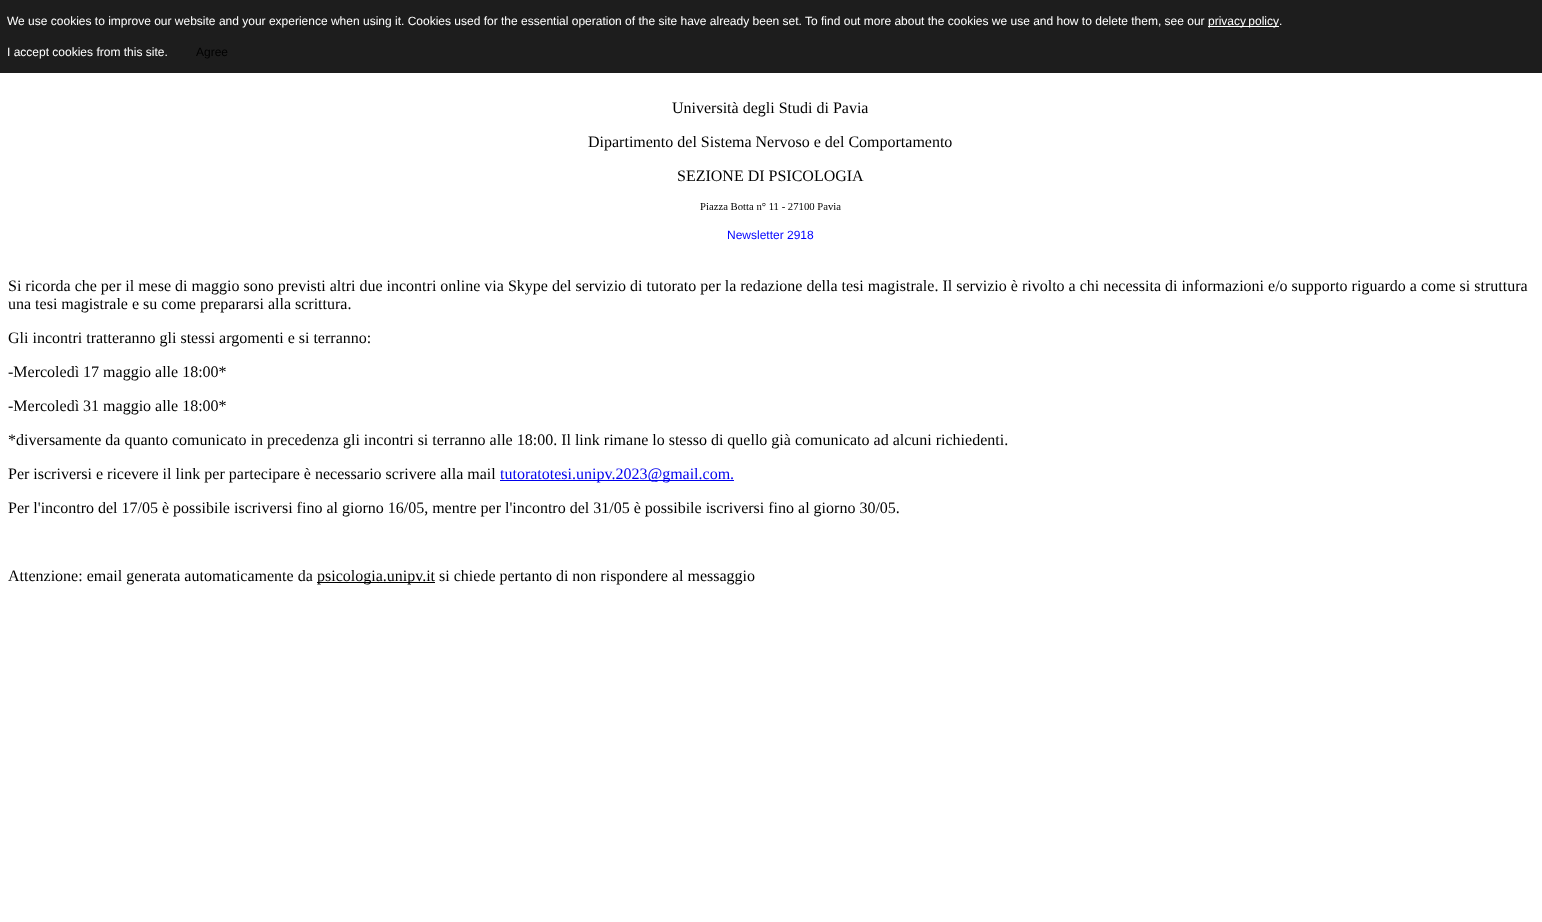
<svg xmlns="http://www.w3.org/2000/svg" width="1542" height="922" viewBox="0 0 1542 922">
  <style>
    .t1 { font: 12px Liberation Sans; fill: #fff; }
    .t2 { font: 12px Liberation Sans; fill: #000; }
    .t3 { font: 16px Liberation Serif; fill: #000; }
    .t4 { font: 10.7px Liberation Serif; fill: #000; }
    .t5 { font: 12px Liberation Sans; fill: #00f; }
    .t6 { font: 16px Liberation Serif; fill: #00e; }
  </style>
  <rect width="100%" height="100%" fill="#fff"/>
  <rect x="0" y="0" width="1542" height="73" fill="#1d1d1d"/>
  <text x="7" y="25" class="t1">We use cookies to improve our website and your experience when using it. Cookies used for the essential operation of the site have already been set. To find out more about the cookies we use and how to delete them, see our</text>
  <rect x="1208" y="26" width="71" height="1" fill="#fff"/>
  <text x="1208" y="25" word-spacing="-1" class="t1">privacy policy</text>
  <text x="1279" y="25" class="t1">.</text>
  <text x="7" y="56" class="t1">I accept cookies from this site.</text>
  <text x="196" y="56" class="t2">Agree</text>
  <text x="672" y="113" class="t3">Università degli Studi di Pavia</text>
  <text x="588" y="147" class="t3">Dipartimento del Sistema Nervoso e del Comportamento</text>
  <text x="677" y="181" class="t3">SEZIONE DI PSICOLOGIA</text>
  <text x="700" y="210" class="t4">Piazza Botta n° 11 - 27100 Pavia</text>
  <text x="727" y="239" class="t5">Newsletter 2918</text>
  <text x="8" y="291" class="t3">Si ricorda che per il mese di maggio sono previsti altri due incontri online via Skype del servizio di tutorato per la redazione della tesi magistrale. Il servizio è rivolto a chi necessita di informazioni e/o supporto riguardo a come si struttura</text>
  <text x="8" y="309" class="t3">una tesi magistrale e su come prepararsi alla scrittura.</text>
  <text x="8" y="343" class="t3">Gli incontri tratteranno gli stessi argomenti e si terranno:</text>
  <text x="8" y="377" class="t3">-Mercoledì 17 maggio alle 18:00*</text>
  <text x="8" y="411" class="t3">-Mercoledì 31 maggio alle 18:00*</text>
  <text x="8" y="445" class="t3">*diversamente da quanto comunicato in precedenza gli incontri si terranno alle 18:00. Il link rimane lo stesso di quello già comunicato ad alcuni richiedenti.</text>
  <text x="8" y="479" class="t3">Per iscriversi e ricevere il link per partecipare è necessario scrivere alla mail</text>
  <rect x="500" y="480" width="234" height="1" fill="#00e"/>
  <text x="500" y="479" class="t6">tutoratotesi.unipv.2023@gmail.com.</text>
  <text x="8" y="513" class="t3">Per l'incontro del 17/05 è possibile iscriversi fino al giorno 16/05, mentre per l'incontro del 31/05 è possibile iscriversi fino al giorno 30/05.</text>
  <text x="8" y="581" class="t3">Attenzione: email generata automaticamente da</text>
  <rect x="317" y="582" width="118" height="1" fill="#000"/>
  <text x="317" y="581" class="t3">psicologia.unipv.it si chiede pertanto di non rispondere al messaggio</text>
</svg>
